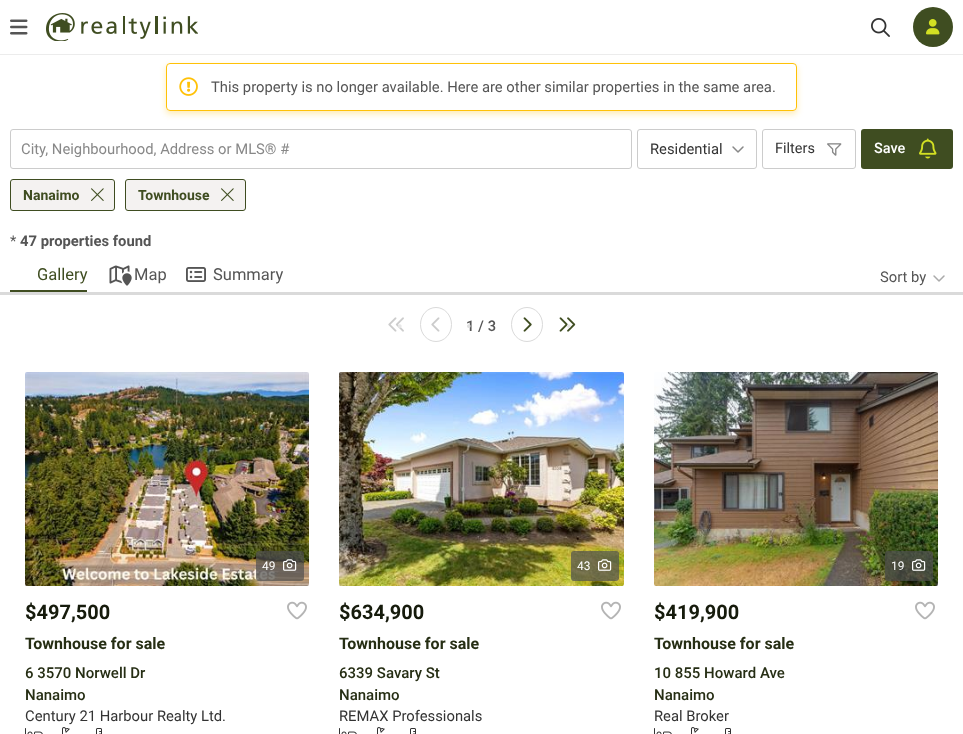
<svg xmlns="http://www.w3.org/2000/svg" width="963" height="734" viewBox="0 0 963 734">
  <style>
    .t1 { font: 14.8px Roboto; fill: #555; }
    .t2 { font: 14.8px Roboto; fill: #888; }
    .t3 { font: 14.8px Roboto; fill: #333; }
    .t4 { font: 14.5px Roboto; fill: #333; }
    .t5 { font: 500 14.5px Roboto; fill: #fff; }
    .t6 { font: bold 14px Roboto; fill: #3f4d21; }
    .t7 { font: bold 14.8px Roboto; fill: #555; }
    .t8 { font: 16.5px Roboto; fill: #3f4d21; }
    .t9 { font: 16.5px Roboto; fill: #555; }
    .t10 { font: 500 16px Roboto; fill: #e7e7e7; }
    .t11 { font: 500 14.8px Roboto; fill: #555; }
    .t12 { font: 500 16px Roboto; fill: #dedede; }
    .t13 { font: 12px Roboto; fill: #fff; }
    .t14 { font: bold 20px Roboto; fill: #161b0c; }
    .t15 { font: bold 16px Roboto; fill: #262e14; }
    .t16 { font: 500 15px Roboto; fill: #262e14; }
  </style>
  <rect width="100%" height="100%" fill="#fff"/>
  <rect x="0" y="54" width="963" height="1" fill="#ececec"/>
  <image x="10" y="19" width="18" height="16" href="images/1.png"/>
  <image x="46" y="13" width="152" height="28" href="images/2.png"/>
  <image x="871" y="18" width="19" height="19" href="images/3.png"/>
  <circle cx="933" cy="27" r="20" fill="#3f4d21"/>
  <image x="926" y="19" width="14" height="16" href="images/4.png"/>
  <rect x="166" y="66" width="631" height="48" rx="4" fill="#ffc1074d" filter="blur(3px)"/>
  <rect x="166" y="63" width="631" height="48" rx="4" fill="#fff"/>
  <image x="179" y="77" width="19" height="19" href="images/5.png"/>
  <rect x="166.5" y="63.5" width="630" height="47" rx="3.5" fill="none" stroke="#ffc107"/>
  <text x="211" y="92" class="t1">This property is no longer available. Here are other similar properties in the same area.</text>
  <rect x="10.5" y="129.5" width="621" height="39" rx="2.5" fill="none" stroke="#ccc"/>
  <text x="21" y="154" class="t2">City, Neighbourhood, Address or MLS® #</text>
  <rect x="637.5" y="129.5" width="119" height="39" rx="2.5" fill="none" stroke="#ccc"/>
  <text x="650" y="154" class="t3">Residential</text>
  <image x="732" y="146" width="12" height="7" href="images/6.png"/>
  <rect x="762.5" y="129.5" width="93" height="39" rx="2.5" fill="none" stroke="#ccc"/>
  <text x="775" y="153" class="t4">Filters</text>
  <image x="827" y="143" width="15" height="13" href="images/7.png"/>
  <rect x="861" y="129" width="92" height="40" rx="3" fill="#3f4d21"/>
  <text x="874" y="153" class="t5">Save</text>
  <image x="919" y="138" width="18" height="21" href="images/8.png"/>
  <rect x="10.5" y="179.5" width="104" height="31" rx="2.5" fill="#f4f2f1" stroke="#3f4d21"/>
  <text x="23" y="200" class="t6">Nanaimo</text>
  <image x="91" y="188" width="13" height="13" href="images/9.png"/>
  <rect x="125.5" y="179.5" width="120" height="31" rx="2.5" fill="#f4f2f1" stroke="#3f4d21"/>
  <text x="138" y="200" class="t6">Townhouse</text>
  <image x="221" y="188" width="13" height="13" href="images/9.png"/>
  <rect x="0" y="292" width="963" height="3" fill="#dadada"/>
  <text x="10" y="246" class="t1">*</text>
  <text x="20" y="246" class="t7">47 properties found</text>
  <rect x="10" y="290" width="77" height="2" fill="#3f4d21"/>
  <text x="37" y="280" class="t8">Gallery</text>
  <image x="109" y="265" width="23" height="21" href="images/10.png"/>
  <text x="134" y="280" class="t9">Map</text>
  <image x="186" y="267" width="20" height="15" href="images/11.png"/>
  <text x="213" y="280" class="t9">Summary</text>
  <text x="880" y="282" class="t1">Sort by</text>
  <image x="933" y="275" width="12" height="7" href="images/12.png"/>
  <image x="388" y="317" width="16" height="15" href="images/13.png"/>
  <text x="397" y="332" class="t10">•</text>
  <path d="M436 307.5C444.5 307.5 451.5 315 451.5 324.5C451.5 334 444.5 341.5 436 341.5C427.5 341.5 420.5 334 420.5 324.5C420.5 315 427.5 307.5 436 307.5Z" fill="none" stroke="#dadada"/>
  <image x="431" y="317" width="9" height="15" href="images/14.png"/>
  <text x="466" y="331" class="t11">1 / 3</text>
  <text x="466" y="332" class="t12">•</text>
  <path d="M527 307.5C535.5 307.5 542.5 315 542.5 324.5C542.5 334 535.5 341.5 527 341.5C518.5 341.5 511.5 334 511.5 324.5C511.5 315 518.5 307.5 527 307.5Z" fill="none" stroke="#dadada"/>
  <image x="523" y="317" width="9" height="15" href="images/15.png"/>
  <image x="559" y="317" width="17" height="15" href="images/16.png"/>
  <text x="566" y="332" class="t10">•</text>
  <image x="25" y="372" width="284" height="214" href="images/17.png"/>
  <rect x="256" y="551" width="48" height="30" rx="3" fill="#505050b3"/>
  <text x="262" y="570" class="t13">49</text>
  <image x="283" y="559" width="14" height="12" href="images/18.png"/>
  <text x="25" y="619" class="t14">$497,500</text>
  <image x="287" y="601" width="20" height="19" href="images/19.png"/>
  <text x="25" y="649" class="t15">Townhouse for sale</text>
  <text x="25" y="678" class="t16">6 3570 Norwell Dr</text>
  <text x="25" y="700" class="t16">Nanaimo</text>
  <text x="25" y="721" class="t3">Century 21 Harbour Realty Ltd.</text>
  <image x="25" y="728" width="18" height="6" href="images/20.png"/>
  <image x="62" y="727" width="8" height="7" href="images/21.png"/>
  <image x="96" y="728" width="6" height="6" href="images/22.png"/>
  <image x="339" y="372" width="285" height="214" href="images/23.png"/>
  <rect x="571" y="551" width="48" height="30" rx="3" fill="#505050b3"/>
  <text x="577" y="570" class="t13">43</text>
  <image x="598" y="559" width="14" height="12" href="images/24.png"/>
  <text x="339" y="619" class="t14">$634,900</text>
  <image x="601" y="601" width="20" height="19" href="images/19.png"/>
  <text x="339" y="649" class="t15">Townhouse for sale</text>
  <text x="339" y="678" class="t16">6339 Savary St</text>
  <text x="339" y="700" class="t16">Nanaimo</text>
  <text x="339" y="721" class="t3">REMAX Professionals</text>
  <image x="339" y="728" width="18" height="6" href="images/20.png"/>
  <image x="377" y="727" width="8" height="7" href="images/21.png"/>
  <image x="410" y="728" width="6" height="6" href="images/22.png"/>
  <image x="654" y="372" width="284" height="214" href="images/25.png"/>
  <rect x="885" y="551" width="48" height="30" rx="3" fill="#505050b3"/>
  <text x="891" y="570" class="t13">19</text>
  <image x="912" y="559" width="14" height="12" href="images/26.png"/>
  <text x="654" y="619" class="t14">$419,900</text>
  <image x="915" y="601" width="20" height="19" href="images/19.png"/>
  <text x="654" y="649" class="t15">Townhouse for sale</text>
  <text x="654" y="678" class="t16">10 855 Howard Ave</text>
  <text x="654" y="700" class="t16">Nanaimo</text>
  <text x="654" y="721" class="t3">Real Broker</text>
  <image x="654" y="728" width="18" height="6" href="images/20.png"/>
  <image x="691" y="727" width="8" height="7" href="images/21.png"/>
  <image x="725" y="728" width="6" height="6" href="images/22.png"/>
</svg>
